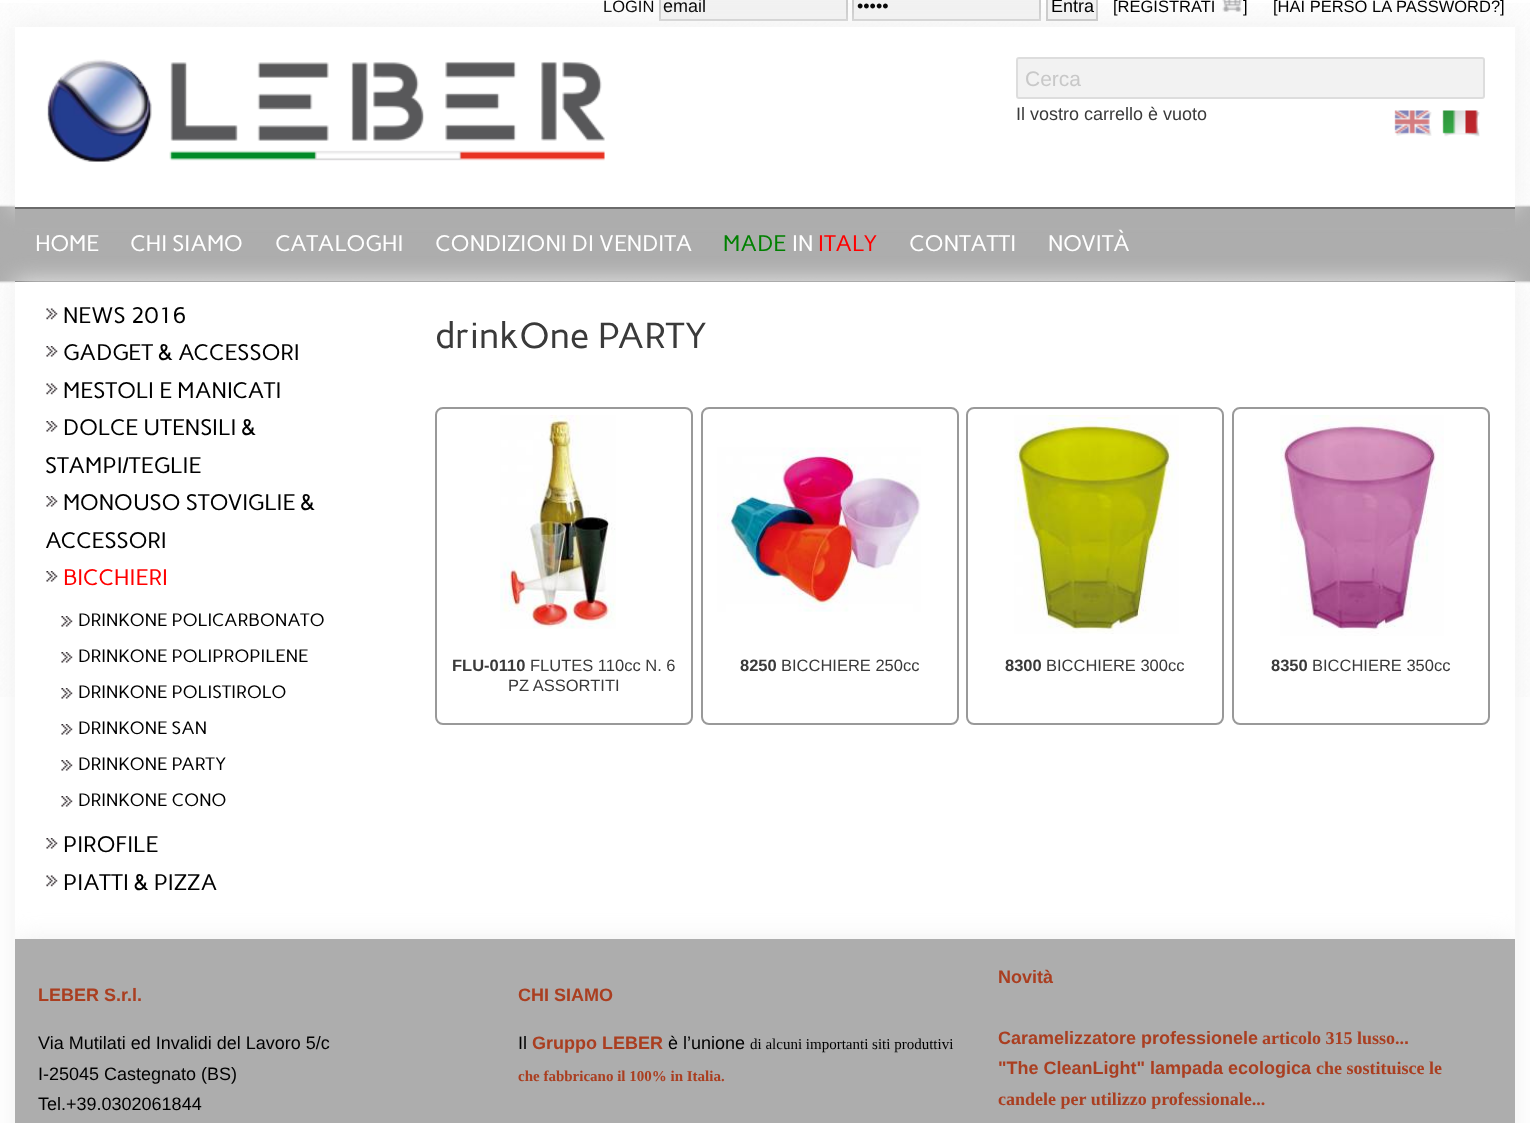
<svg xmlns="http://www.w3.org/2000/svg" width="1530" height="1123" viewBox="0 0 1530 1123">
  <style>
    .t1 { font: 16.5px Liberation Sans; fill: #000; }
    .t2 { font: 18px Liberation Sans; fill: #000; }
    .t3 { font: 21px Liberation Sans; fill: #c8c8c8; }
    .t4 { font: 18px Liberation Sans; fill: #3a3a3a; }
    .t5 { font: 22.5px Carme; fill: #fff; }
    .t6 { font: 22.5px Carme; fill: #008000; }
    .t7 { font: 22.5px Carme; fill: #f00; }
    .t8 { font: 22.5px Carme; fill: #000; }
    .t9 { font: 18px Carme; fill: #000; }
    .t10 { font: 36px Carme; fill: #3a3a3a; }
    .t11 { font: bold 16.5px Liberation Sans; fill: #3a3a3a; }
    .t12 { font: 16.5px Liberation Sans; fill: #3a3a3a; }
    .t13 { font: bold 18px Liberation Sans; fill: #aa3e20; }
    .t14 { font: 15px Liberation Serif; fill: #000; }
    .t15 { font: bold 15px Liberation Serif; fill: #aa3e20; }
    .t16 { font: bold 18px Liberation Serif; fill: #aa3e20; }
  </style>
  <rect width="100%" height="100%" fill="#fff"/>
  <image x="0" y="3" width="1530" height="694" href="images/1.png"/>
  <text x="603" y="12" class="t1">LOGIN</text>
  <rect x="660" y="-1" width="187" height="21" fill="#f2f2f2" stroke="#ccc" stroke-width="2"/>
  <text x="663" y="12" class="t2">email</text>
  <rect x="853" y="-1" width="187" height="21" fill="#f2f2f2" stroke="#ccc" stroke-width="2"/>
  <text x="857" y="12" class="t2">•••••</text>
  <image x="1222" y="0" width="20" height="12" href="images/2.png"/>
  <rect x="15" y="27" width="1500" height="180" fill="#efefef" filter="blur(12px)"/>
  <rect x="1047" y="-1" width="50" height="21" fill="#f2f2f2" stroke="#ccc" stroke-width="2"/>
  <text x="1051" y="12" class="t2">Entra</text>
  <text x="1113" y="12" class="t1">[REGISTRATI</text>
  <text x="1243" y="12" class="t1">]</text>
  <text x="1273" y="12" class="t1">[HAI PERSO LA PASSWORD?]</text>
  <rect x="15" y="27" width="1500" height="180" fill="#fff"/>
  <image x="47" y="59" width="558" height="103" href="images/3.png"/>
  <rect x="1017" y="58" width="467" height="40" rx="2" fill="#f2f2f2" stroke="#ddd" stroke-width="2"/>
  <text x="1025" y="86" class="t3">Cerca</text>
  <text x="1016" y="120" class="t4">Il vostro carrello è vuoto</text>
  <image x="1394" y="110" width="38" height="26" href="images/4.png"/>
  <image x="1442" y="110" width="38" height="27" href="images/5.png"/>
  <rect x="15" y="209" width="1500" height="19" fill="#adadad"/>
  <rect x="15" y="207" width="1500" height="2" fill="#6b6b6b"/>
  <rect x="15" y="281" width="1500" height="1" fill="#6b6b6b"/>
  <rect x="15" y="282" width="1500" height="657" fill="#efefef" filter="blur(12px)"/>
  <text x="35" y="251" class="t5">HOME</text>
  <text x="130" y="251" class="t5">CHI SIAMO</text>
  <text x="275" y="251" class="t5">CATALOGHI</text>
  <text x="435" y="251" class="t5">CONDIZIONI DI VENDITA</text>
  <text x="723" y="251" class="t6">MADE</text>
  <text x="792" y="251" class="t5">IN</text>
  <text x="818" y="251" class="t7">ITALY</text>
  <text x="909" y="251" class="t5">CONTATTI</text>
  <text x="1048" y="251" class="t5">NOVITÀ</text>
  <rect x="15" y="282" width="1500" height="657" fill="#fff"/>
  <image x="46" y="308" width="12" height="12" href="images/6.png"/>
  <text x="63" y="323" class="t8">NEWS 2016</text>
  <image x="46" y="346" width="12" height="11" href="images/7.png"/>
  <text x="63" y="360" class="t8">GADGET &amp; ACCESSORI</text>
  <image x="46" y="383" width="12" height="12" href="images/6.png"/>
  <text x="63" y="398" class="t8">MESTOLI E MANICATI</text>
  <image x="46" y="421" width="12" height="11" href="images/7.png"/>
  <text x="63" y="435" class="t8">DOLCE UTENSILI &amp;</text>
  <text x="45" y="473" class="t8">STAMPI/TEGLIE</text>
  <image x="46" y="496" width="12" height="11" href="images/7.png"/>
  <text x="63" y="510" class="t8">MONOUSO STOVIGLIE &amp;</text>
  <text x="45" y="548" class="t8">ACCESSORI</text>
  <image x="46" y="571" width="12" height="11" href="images/7.png"/>
  <text x="63" y="585" class="t7">BICCHIERI</text>
  <image x="61" y="616" width="12" height="11" href="images/7.png"/>
  <text x="78" y="626" class="t9">DRINKONE POLICARBONATO</text>
  <image x="61" y="652" width="12" height="11" href="images/7.png"/>
  <text x="78" y="662" class="t9">DRINKONE POLIPROPILENE</text>
  <image x="61" y="688" width="12" height="11" href="images/7.png"/>
  <text x="78" y="698" class="t9">DRINKONE POLISTIROLO</text>
  <image x="61" y="724" width="12" height="11" href="images/7.png"/>
  <text x="78" y="734" class="t9">DRINKONE SAN</text>
  <image x="61" y="760" width="12" height="11" href="images/7.png"/>
  <text x="78" y="770" class="t9">DRINKONE PARTY</text>
  <image x="61" y="796" width="12" height="11" href="images/7.png"/>
  <text x="78" y="806" class="t9">DRINKONE CONO</text>
  <image x="46" y="838" width="12" height="11" href="images/7.png"/>
  <text x="63" y="852" class="t8">PIROFILE</text>
  <image x="46" y="875" width="12" height="12" href="images/6.png"/>
  <text x="63" y="890" class="t8">PIATTI &amp; PIZZA</text>
  <text x="435" y="348" class="t10">drinkOne PARTY</text>
  <rect x="436" y="408" width="256" height="316" rx="7" fill="none" stroke="#999" stroke-width="2"/>
  <image x="500" y="415" width="116" height="214" href="images/8.png"/>
  <text x="452" y="671" class="t11">FLU-0110</text>
  <text x="530" y="671" class="t12">FLUTES 110cc N. 6</text>
  <text x="508" y="691" class="t12">PZ ASSORTITI</text>
  <rect x="702" y="408" width="256" height="316" rx="7" fill="none" stroke="#999" stroke-width="2"/>
  <image x="717" y="447" width="204" height="165" href="images/9.png"/>
  <text x="740" y="671" class="t11">8250</text>
  <text x="781" y="671" class="t12">BICCHIERE 250cc</text>
  <rect x="967" y="408" width="256" height="316" rx="7" fill="none" stroke="#999" stroke-width="2"/>
  <image x="1014" y="415" width="165" height="219" href="images/10.png"/>
  <text x="1005" y="671" class="t11">8300</text>
  <text x="1046" y="671" class="t12">BICCHIERE 300cc</text>
  <rect x="1233" y="408" width="256" height="316" rx="7" fill="none" stroke="#999" stroke-width="2"/>
  <image x="1280" y="415" width="164" height="221" href="images/11.png"/>
  <text x="1271" y="671" class="t11">8350</text>
  <text x="1312" y="671" class="t12">BICCHIERE 350cc</text>
  <rect x="15" y="939" width="1500" height="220" fill="#efefef" filter="blur(12px)"/>
  <rect x="15" y="939" width="1500" height="184" fill="#adadad"/>
  <text x="38" y="1001" class="t13">LEBER S.r.l.</text>
  <text x="38" y="1049" class="t2">Via Mutilati ed Invalidi del Lavoro 5/c</text>
  <text x="38" y="1080" class="t2">I-25045 Castegnato (BS)</text>
  <text x="38" y="1110" class="t2">Tel.+39.0302061844</text>
  <text x="518" y="1001" class="t13">CHI SIAMO</text>
  <text x="518" y="1049" class="t2">Il</text>
  <text x="532" y="1049" class="t13">Gruppo LEBER</text>
  <text x="668" y="1049" class="t2">è l’unione</text>
  <text x="750" y="1049" class="t14">di alcuni importanti siti produttivi</text>
  <text x="518" y="1081" class="t15">che fabbricano il 100% in Italia.</text>
  <text x="998" y="983" class="t13">Novità</text>
  <text x="998" y="1044" class="t13">Caramelizzatore professionele</text>
  <text x="1262" y="1044" class="t16">articolo 315 lusso..</text>
  <text x="1404" y="1044" class="t13">.</text>
  <text x="998" y="1074" class="t13">"The CleanLight" lampada ecologica</text>
  <text x="1316" y="1074" class="t16">che sostituisce le</text>
  <text x="998" y="1105" class="t16">candele per utilizzo professionale...</text>
</svg>
